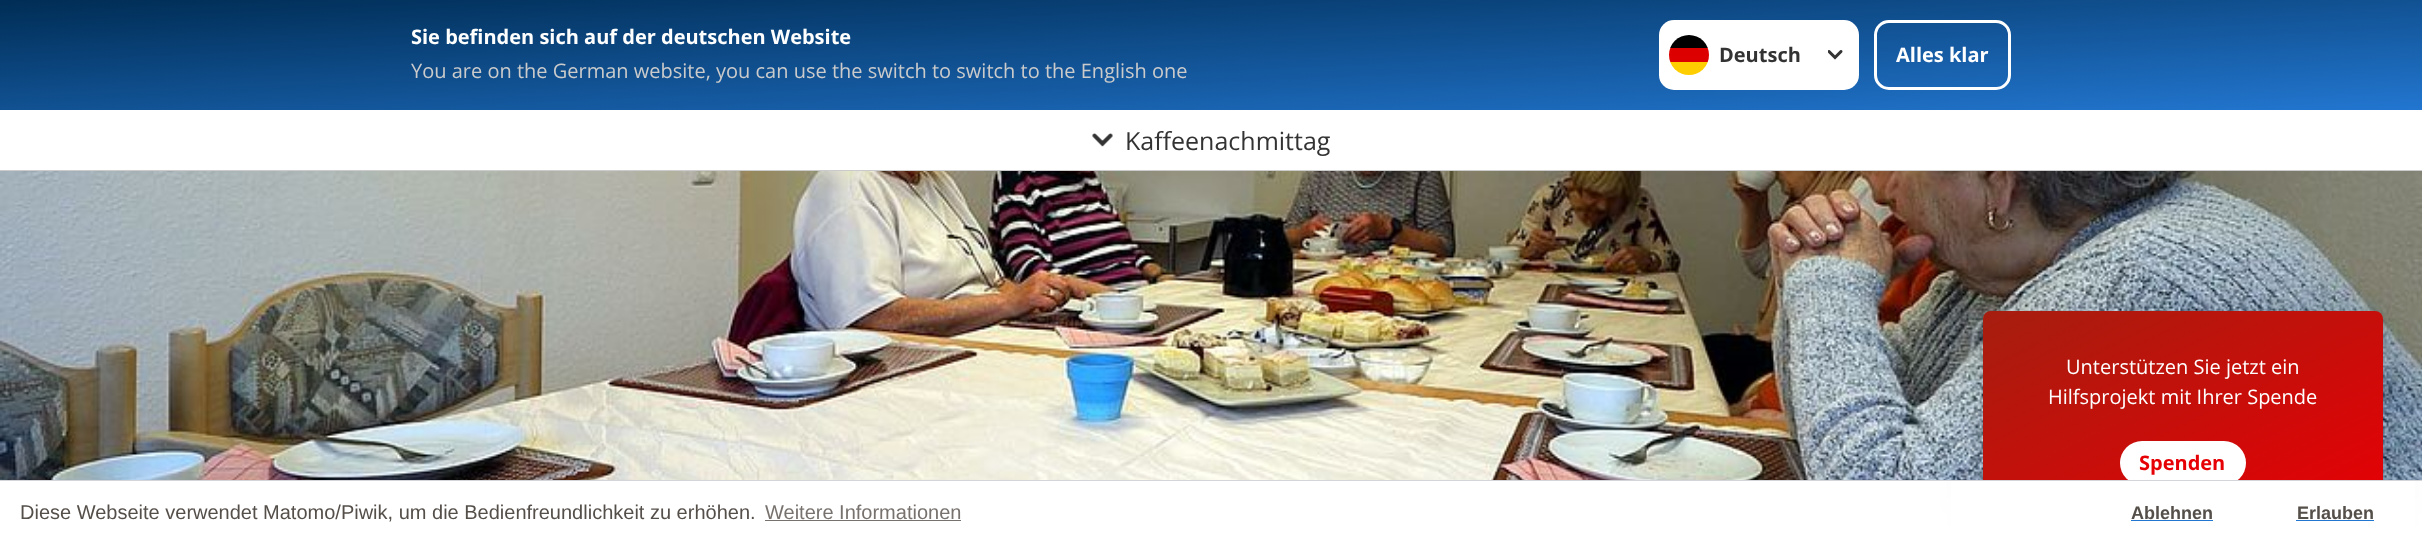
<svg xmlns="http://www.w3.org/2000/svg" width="2422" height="544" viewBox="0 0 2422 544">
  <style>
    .t1 { font: bold 20px Open Sans; fill: #fff; }
    .t2 { font: 20px Open Sans; fill: #cbcbcb; }
    .t3 { font: bold 20px Open Sans; fill: #333; }
    .t4 { font: 25px Open Sans; fill: #333; }
    .t5 { font: 20px Open Sans; fill: #fff; }
    .t6 { font: bold 20px Open Sans; fill: #e60005; }
    .t7 { font: 20px Liberation Sans; fill: #554f4a; }
    .t8 { font: 20px Liberation Sans; fill: #77726e; }
    .t9 { font: bold 18px Liberation Sans; fill: #554f4a; }
  </style>
  <defs>
    <linearGradient id="g1" gradientUnits="userSpaceOnUse" x1="1206" y1="-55" x2="1216" y2="165"><stop offset="0" stop-color="#002d55"/><stop offset="1" stop-color="#2276d0"/></linearGradient>
    <clipPath id="clip1"><rect x="1669" y="35" width="40" height="40" rx="20"/></clipPath>
    <linearGradient id="g2" gradientUnits="userSpaceOnUse" x1="2106" y1="251" x2="2259" y2="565"><stop offset="0" stop-color="#a51e0f"/><stop offset="1" stop-color="#e60005"/></linearGradient>
  </defs>
  <rect width="100%" height="100%" fill="#fff"/>
  <rect x="0" y="0" width="2422" height="110" fill="url(#g1)"/>
  <text x="411" y="44" class="t1">Sie befinden sich auf der deutschen Website</text>
  <text x="411" y="78" class="t2">You are on the German website, you can use the switch to switch to the English one</text>
  <rect x="1659" y="20" width="200" height="70" rx="15" fill="#fff"/>
  <g clip-path="url(#clip1)">
    <rect x="1670" y="62" width="38" height="13" fill="#ffce00"/>
    <rect x="1670" y="35" width="38" height="13" fill="#000"/>
    <rect x="1669" y="48" width="40" height="14" fill="#d00"/>
  </g>
  <image x="1828" y="50" width="15" height="10" href="images/1.png"/>
  <text x="1719" y="62" class="t3">Deutsch</text>
  <rect x="1875.5" y="21.5" width="134" height="67" rx="13.5" fill="none" stroke="#fff" stroke-width="3"/>
  <text x="1896" y="62" class="t1">Alles klar</text>
  <rect x="0" y="170" width="2422" height="1" fill="#cbcbcb"/>
  <image x="1092" y="133" width="21" height="14" href="images/2.png"/>
  <text x="1125" y="150" class="t4">Kaffeenachmittag</text>
  <image x="0" y="171" width="2422" height="309" href="images/3.png"/>
  <rect x="1983" y="320" width="400" height="194" rx="8" fill="#00000033" filter="blur(20px)"/>
  <rect x="1983" y="311" width="400" height="194" rx="8" fill="url(#g2)"/>
  <text x="2066" y="374" class="t5">Unterstützen Sie jetzt ein</text>
  <text x="2048" y="404" class="t5">Hilfsprojekt mit Ihrer Spende</text>
  <rect x="2120" y="441" width="126" height="44" rx="22" fill="#fff"/>
  <text x="2139" y="470" class="t6">Spenden</text>
  <rect x="1951" y="481" width="464" height="63" fill="#fff"/>
  <rect x="0" y="480" width="2422" height="1" fill="#d3d5d9"/>
  <text x="20" y="519" class="t7">Diese Webseite verwendet Matomo/Piwik, um die Bedienfreundlichkeit zu erhöhen.</text>
  <text x="765" y="519" class="t8">Weitere Informationen</text>
  <rect x="765" y="520" width="196" height="1" fill="#77726e"/>
  <text x="2131" y="519" class="t9">Ablehnen</text>
  <rect x="2131" y="520" width="82" height="1" fill="#2276d0"/>
  <text x="2297" y="519" class="t9">Erlauben</text>
  <rect x="2296" y="520" width="78" height="1" fill="#2276d0"/>
</svg>
